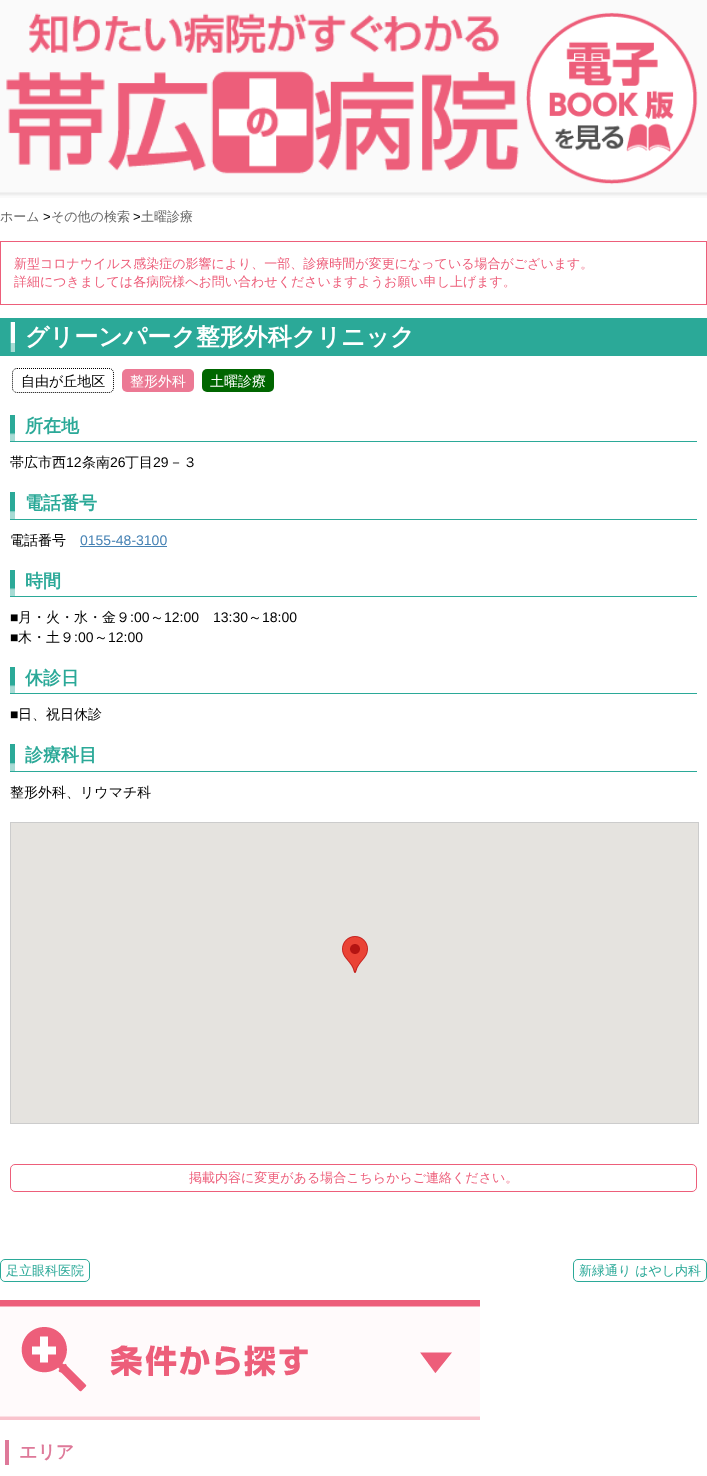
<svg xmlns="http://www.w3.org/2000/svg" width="707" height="1476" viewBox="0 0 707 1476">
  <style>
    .t1 { font: 500 13px WenQuanYi Zen Hei; fill: #666; }
    .t2 { font: 13px Liberation Sans; fill: #000; }
    .t3 { font: 500 13px WenQuanYi Zen Hei; fill: #ed5e7a; }
    .t4 { font: bold 24px WenQuanYi Zen Hei; fill: #fff; }
    .t5 { font: 500 14px WenQuanYi Zen Hei; fill: #000; }
    .t6 { font: 500 14px WenQuanYi Zen Hei; fill: #fff; }
    .t7 { font: bold 18px WenQuanYi Zen Hei; fill: #2ba998; }
    .t8 { font: 14px Liberation Sans; fill: #000; }
    .t9 { font: 14px Liberation Sans; fill: #4682b4; }
    .t10 { font: 500 13px WenQuanYi Zen Hei; fill: #2ba998; }
    .t11 { font: bold 18px WenQuanYi Zen Hei; fill: #de7999; }
  </style>
  <rect width="100%" height="100%" fill="#fff"/>
  <rect x="0" y="0" width="707" height="198" fill="#fafafa"/>
  <image x="0" y="192" width="707" height="4" href="images/1.png"/>
  <image x="6" y="13" width="513" height="161" href="images/2.png"/>
  <image x="526" y="12" width="172" height="173" href="images/3.png"/>
  <text x="0" y="221" class="t1">ホーム</text>
  <text x="43" y="221" class="t2">&gt;</text>
  <text x="51" y="221" class="t1">その他の検索</text>
  <text x="133" y="221" class="t2">&gt;</text>
  <text x="141" y="221" class="t1">土曜診療</text>
  <rect x="0.5" y="241.5" width="706" height="63" fill="none" stroke="#ed5e7a"/>
  <text x="14" y="268" class="t3">新型コロナウイルス感染症の影響により、一部、診療時間が変更になっている場合がございます。</text>
  <text x="14" y="286" class="t3">詳細につきましては各病院様へお問い合わせくださいますようお願い申し上げます。</text>
  <rect x="0" y="318" width="707" height="38" fill="#2ba998"/>
  <image x="10" y="322" width="5" height="30" href="images/4.png"/>
  <text x="25" y="345" class="t4">グリーンパーク整形外科クリニック</text>
  <path d="M17 368.5H109C111.5 368.5 113.5 370.5 113.5 373V388C113.5 390.5 111.5 392.5 109 392.5H17C14.5 392.5 12.5 390.5 12.5 388V373C12.5 370.5 14.5 368.5 17 368.5Z" fill="none" stroke="#000" stroke-dasharray="1 1"/>
  <text x="21" y="386" class="t5">自由が丘地区</text>
  <rect x="122" y="369" width="72" height="23" rx="5" fill="#ec7994"/>
  <text x="130" y="386" class="t6">整形外科</text>
  <rect x="202" y="369" width="72" height="23" rx="5" fill="#060"/>
  <text x="210" y="386" class="t6">土曜診療</text>
  <image x="10" y="415" width="5" height="26" href="images/5.png"/>
  <rect x="10" y="441" width="687" height="1" fill="#2ba998"/>
  <text x="25" y="432" class="t7">所在地</text>
  <text x="10" y="467" class="t5">帯広市西</text>
  <text x="66" y="467" class="t8">12</text>
  <text x="82" y="467" class="t5">条南</text>
  <text x="110" y="467" class="t8">26</text>
  <text x="125" y="467" class="t5">丁目</text>
  <text x="153" y="467" class="t8">29</text>
  <text x="169" y="467" class="t5">－３</text>
  <image x="10" y="492" width="5" height="27" href="images/6.png"/>
  <rect x="10" y="519" width="687" height="1" fill="#2ba998"/>
  <text x="25" y="509" class="t7">電話番号</text>
  <text x="10" y="545" class="t5">電話番号</text>
  <text x="80" y="545" class="t9">0155-48-3100</text>
  <rect x="80" y="546" width="87" height="1" fill="#4682b4"/>
  <image x="10" y="570" width="5" height="26" href="images/5.png"/>
  <rect x="10" y="596" width="687" height="1" fill="#2ba998"/>
  <text x="25" y="587" class="t7">時間</text>
  <text x="10" y="622" class="t8">■</text>
  <text x="18" y="622" class="t5">月・火・水・金９</text>
  <text x="130" y="622" class="t8">:00</text>
  <text x="150" y="622" class="t5">～</text>
  <text x="164" y="622" class="t8">12:00</text>
  <text x="213" y="622" class="t8">13:30</text>
  <text x="248" y="622" class="t5">～</text>
  <text x="262" y="622" class="t8">18:00</text>
  <text x="10" y="642" class="t8">■</text>
  <text x="18" y="642" class="t5">木・土９</text>
  <text x="74" y="642" class="t8">:00</text>
  <text x="94" y="642" class="t5">～</text>
  <text x="108" y="642" class="t8">12:00</text>
  <image x="10" y="667" width="5" height="26" href="images/5.png"/>
  <rect x="10" y="693" width="687" height="1" fill="#2ba998"/>
  <text x="25" y="684" class="t7">休診日</text>
  <text x="10" y="719" class="t8">■</text>
  <text x="18" y="719" class="t5">日、祝日休診</text>
  <image x="10" y="744" width="5" height="27" href="images/6.png"/>
  <rect x="10" y="771" width="687" height="1" fill="#2ba998"/>
  <text x="25" y="761" class="t7">診療科目</text>
  <text x="10" y="797" class="t5">整形外科、リウマチ科</text>
  <rect x="10.5" y="822.5" width="688" height="301" fill="none" stroke="#ccc"/>
  <rect x="11" y="823" width="687" height="300" fill="#e5e3df"/>
  <image x="342" y="936" width="26" height="37" href="images/7.png"/>
  <rect x="10.5" y="1164.5" width="686" height="27" rx="4.5" fill="none" stroke="#ed5e7a"/>
  <text x="189" y="1182" class="t3">掲載内容に変更がある場合こちらからご連絡ください。</text>
  <rect x="0.5" y="1259.5" width="89" height="22" rx="4.5" fill="none" stroke="#2ba998"/>
  <text x="6" y="1275" class="t10">足立眼科医院</text>
  <rect x="573.5" y="1259.5" width="133" height="22" rx="4.5" fill="none" stroke="#2ba998"/>
  <text x="579" y="1275" class="t10">新緑通り はやし内科</text>
  <image x="0" y="1300" width="480" height="120" href="images/8.png"/>
  <rect x="5" y="1440" width="4" height="25" fill="#de7999"/>
  <text x="19" y="1458" class="t11">エリア</text>
</svg>
